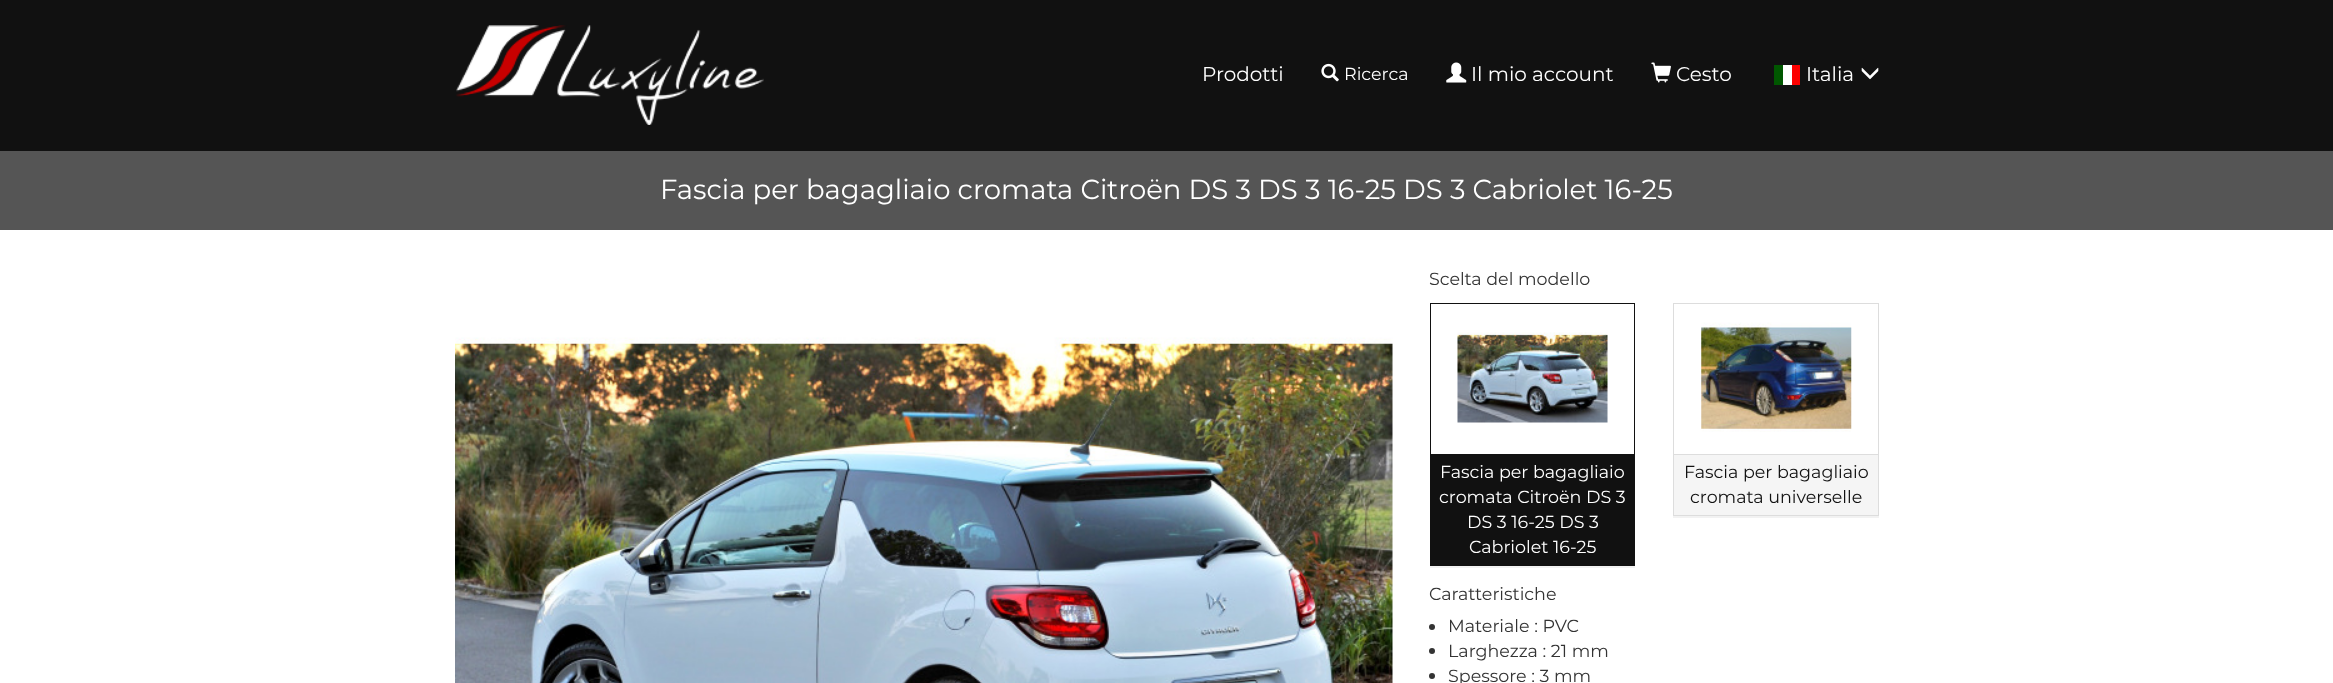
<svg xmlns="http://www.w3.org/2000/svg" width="2333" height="683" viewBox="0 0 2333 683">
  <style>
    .t1 { font: 100 20px Montserrat; fill: #fff; }
    .t2 { font: 100 17.5px Montserrat; fill: #fff; }
    .t3 { font: 100 27.5px Montserrat; fill: #fff; }
    .t4 { font: 100 17.5px Montserrat; fill: #333; }
    .t5 { font: 100 17.5px Montserrat; fill: #111; }
  </style>
  <defs>
    <clipPath id="clip1"><rect x="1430" y="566" width="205" height="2"/></clipPath>
  </defs>
  <rect width="100%" height="100%" fill="#fff"/>
  <rect x="0" y="0" width="2333" height="151" fill="#111"/>
  <image x="456" y="25" width="308" height="100" href="images/1.png"/>
  <text x="1202" y="81" class="t1">Prodotti</text>
  <image x="1321" y="63" width="18" height="19" href="images/2.png"/>
  <text x="1344" y="80" class="t2">Ricerca</text>
  <image x="1446" y="62" width="21" height="21" href="images/3.png"/>
  <text x="1471" y="81" class="t1">Il mio account</text>
  <image x="1651" y="62" width="20" height="21" href="images/4.png"/>
  <text x="1676" y="81" class="t1">Cesto</text>
  <rect x="1783" y="65" width="9" height="20" fill="#fff"/>
  <rect x="1774" y="65" width="9" height="20" fill="#005700"/>
  <rect x="1792" y="65" width="8" height="20" fill="#fc0000"/>
  <text x="1806" y="81" class="t1">Italia</text>
  <image x="1861" y="67" width="18" height="13" href="images/5.png"/>
  <rect x="0" y="151" width="2333" height="79" fill="#555"/>
  <text x="660" y="199" class="t3">Fascia per bagagliaio cromata Citroën DS 3 DS 3 16-25 DS 3 Cabriolet 16-25</text>
  <image x="455" y="337" width="938" height="346" href="images/6.png"/>
  <text x="1429" y="285" class="t4">Scelta del modello</text>
  <g clip-path="url(#clip1)">
    <rect x="1430" y="304" width="205" height="264" fill="#0000000d" filter="blur(0.5px)"/>
  </g>
  <rect x="1430.5" y="303.5" width="204" height="262" fill="none" stroke="#111"/>
  <image x="1457" y="332" width="151" height="91" href="images/7.png"/>
  <rect x="1431" y="454" width="203" height="111" fill="#111"/>
  <text x="1440" y="478" class="t2">Fascia per bagagliaio</text>
  <text x="1439" y="503" class="t2">cromata Citroën DS 3</text>
  <text x="1467" y="528" class="t2">DS 3 16-25 DS 3</text>
  <text x="1469" y="553" class="t2">Cabriolet 16-25</text>
  <rect x="1673" y="304" width="206" height="214" fill="#0000000d" filter="blur(0.5px)"/>
  <rect x="1674" y="304" width="204" height="150" fill="#fff"/>
  <rect x="1673.5" y="303.5" width="205" height="212" fill="none" stroke="#ddd"/>
  <image x="1701" y="322" width="151" height="110" href="images/8.png"/>
  <rect x="1674" y="455" width="204" height="60" fill="#f5f5f5"/>
  <rect x="1674" y="454" width="204" height="1" fill="#ddd"/>
  <text x="1684" y="478" class="t5">Fascia per bagagliaio</text>
  <text x="1690" y="503" class="t5">cromata universelle</text>
  <text x="1429" y="600" class="t4">Caratteristiche</text>
  <circle cx="1432" cy="627" r="3" fill="#333"/>
  <text x="1448" y="632" class="t4">Materiale : PVC</text>
  <circle cx="1432" cy="651" r="3" fill="#333"/>
  <text x="1448" y="657" class="t4">Larghezza : 21 mm</text>
  <circle cx="1432" cy="676" r="3" fill="#333"/>
  <text x="1448" y="682" class="t4">Spessore : 3 mm</text>
</svg>
